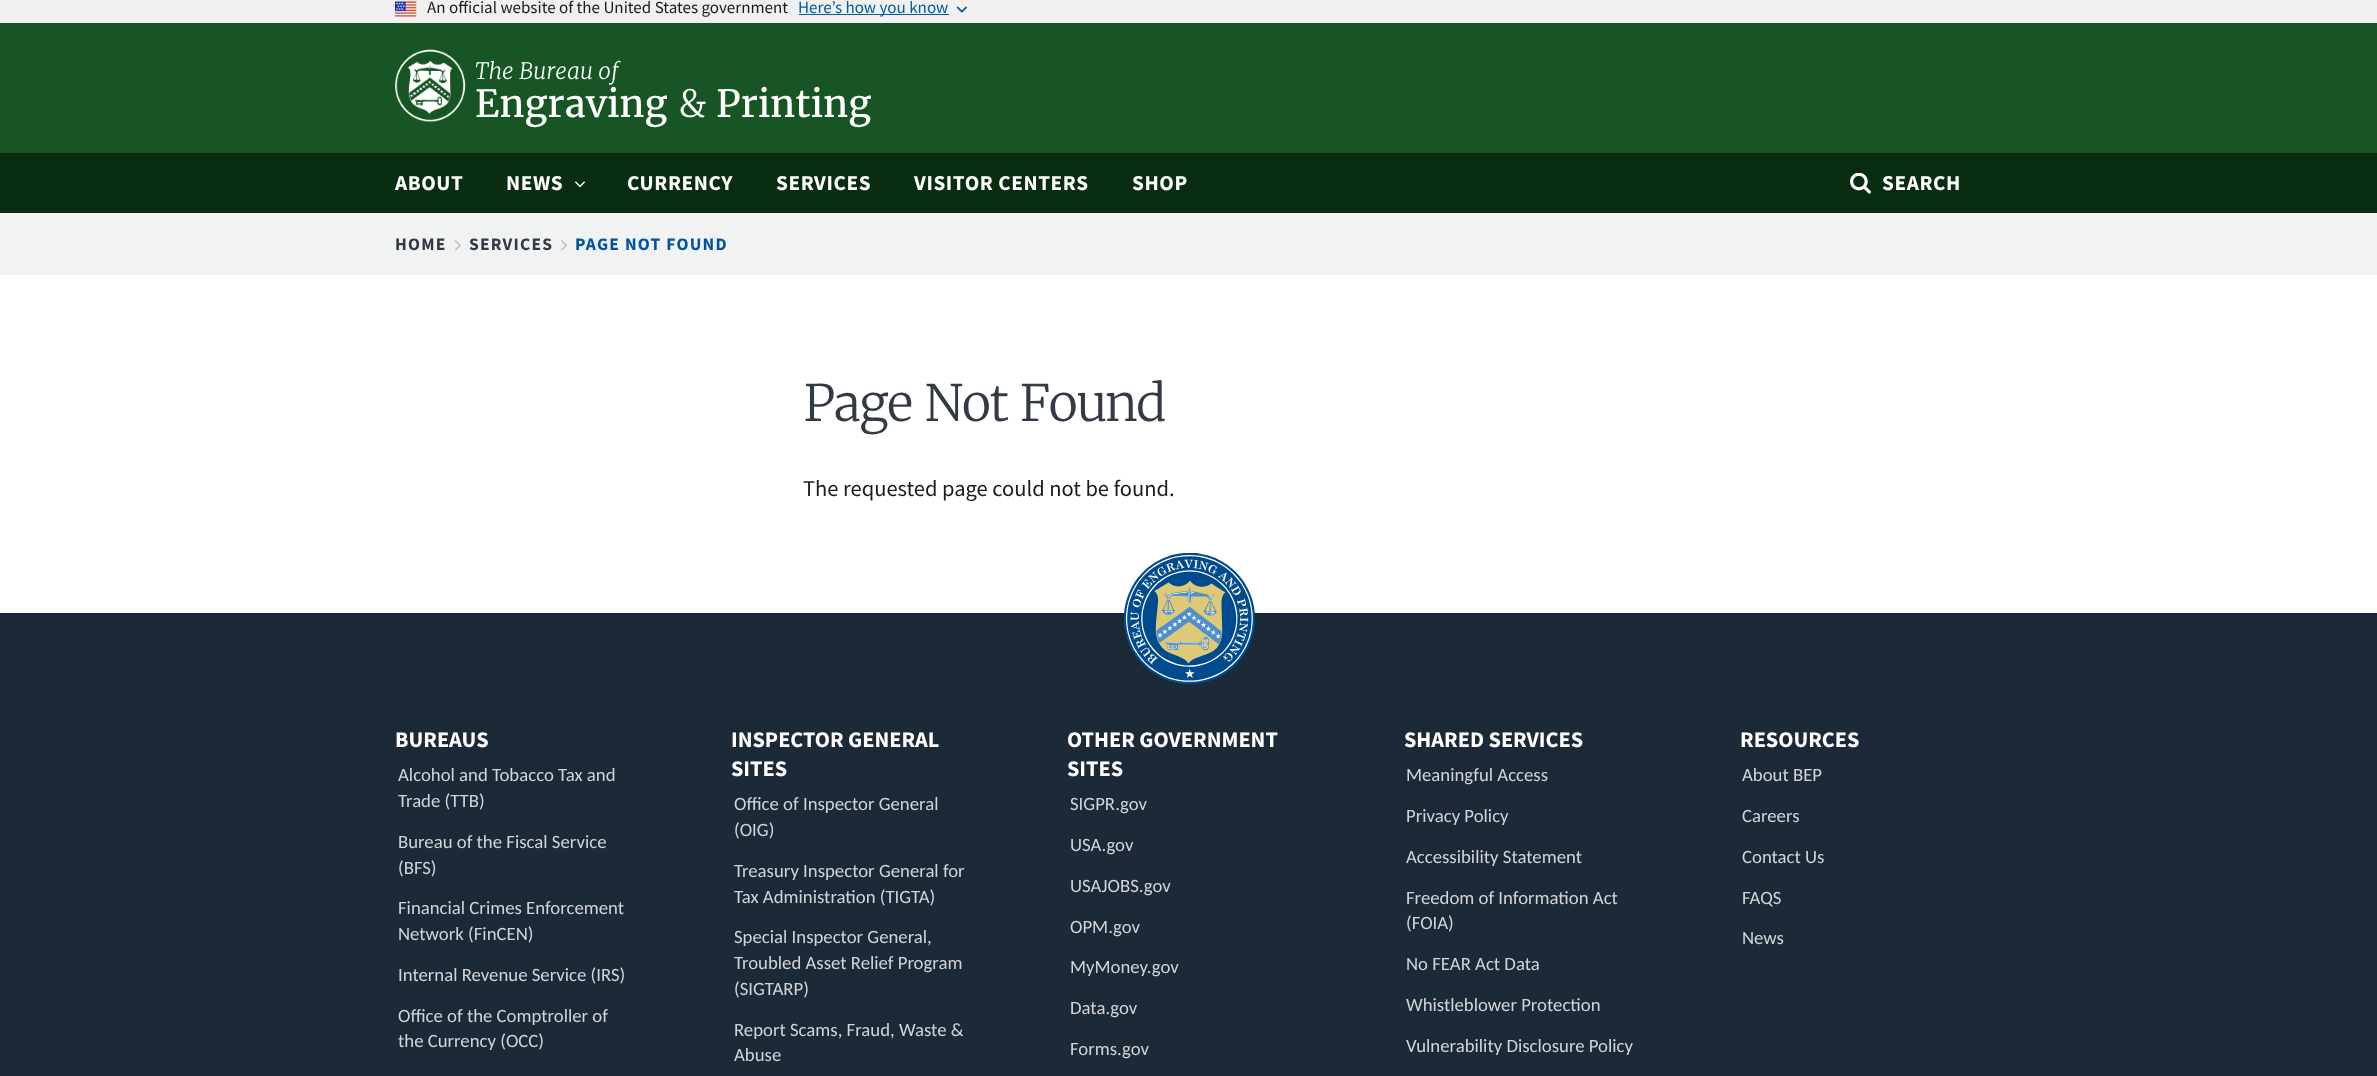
<svg xmlns="http://www.w3.org/2000/svg" width="2377" height="1076" viewBox="0 0 2377 1076">
  <style>
    .t1 { font: 17px Source Sans Pro; fill: #1b1b1b; }
    .t2 { font: 17px Source Sans Pro; fill: #005ea2; }
    .t3 { font: italic 300 22.5px Merriweather; fill: #fff; }
    .t4 { font: 37.5px Merriweather; fill: #fff; }
    .t5 { font: 300 37.5px Merriweather; fill: #fff; }
    .t6 { font: bold 21.25px Source Sans Pro; letter-spacing: 0.6px; fill: #fff; }
    .t7 { font: bold 17.5px Source Sans Pro; letter-spacing: 1.25px; fill: #323a45; }
    .t8 { font: bold 17.5px Source Sans Pro; letter-spacing: 1.25px; fill: #0053a2; }
    .t9 { font: 300 50px Merriweather; letter-spacing: -2.1px; fill: #323a45; }
    .t10 { font: 22.5px Source Sans Pro; fill: #1b1b1b; }
    .t11 { font: bold 22.25px Source Sans Pro; fill: #fff; }
    .t12 { font: 18.75px Carlito; fill: #d2d4d7; }
  </style>
  <rect width="100%" height="100%" fill="#fff"/>
  <rect x="0" y="0" width="2377" height="23" fill="#f0f0f0"/>
  <image x="395" y="1" width="22" height="16" href="images/1.png"/>
  <text x="427" y="13" class="t1">An official website of the United States government</text>
  <rect x="799" y="14" width="150" height="1" fill="#005ea2"/>
  <text x="798" y="13" class="t2">Here’s how you know</text>
  <image x="956" y="6" width="12" height="7" href="images/2.png"/>
  <rect x="0" y="23" width="2377" height="130" fill="#175624"/>
  <image x="395" y="49" width="71" height="73" href="images/3.png"/>
  <text x="475" y="79" class="t3">The Bureau of</text>
  <text x="475" y="117" class="t4">Engraving</text>
  <text x="678" y="117" class="t5">&amp;</text>
  <text x="716" y="117" class="t4">Printing</text>
  <rect x="0" y="153" width="2377" height="60" fill="#092d10"/>
  <text x="395" y="190" class="t6">ABOUT</text>
  <image x="575" y="181" width="10" height="7" href="images/4.png"/>
  <text x="506" y="190" class="t6">NEWS</text>
  <text x="627" y="190" class="t6">CURRENCY</text>
  <text x="776" y="190" class="t6">SERVICES</text>
  <text x="914" y="190" class="t6">VISITOR CENTERS</text>
  <text x="1132" y="190" class="t6">SHOP</text>
  <image x="1850" y="173" width="21" height="21" href="images/5.png"/>
  <text x="1882" y="190" class="t6">SEARCH</text>
  <rect x="0" y="213" width="2377" height="62" fill="#f1f2f2"/>
  <text x="395" y="250" class="t7">HOME</text>
  <image x="454" y="240" width="7" height="11" href="images/6.png"/>
  <text x="469" y="250" class="t7">SERVICES</text>
  <image x="561" y="240" width="6" height="11" href="images/7.png"/>
  <text x="575" y="250" class="t8">PAGE NOT FOUND</text>
  <text x="803" y="421" class="t9">Page Not Found</text>
  <text x="803" y="496" class="t10">The requested page could not be found.</text>
  <rect x="0" y="613" width="2377" height="463" fill="#1c2936"/>
  <image x="1124" y="553" width="131" height="131" href="images/8.png"/>
  <text x="395" y="747" class="t11">BUREAUS</text>
  <text x="398" y="781" class="t12">Alcohol and Tobacco Tax and</text>
  <text x="398" y="807" class="t12">Trade (TTB)</text>
  <text x="398" y="848" class="t12">Bureau of the Fiscal Service</text>
  <text x="398" y="874" class="t12">(BFS)</text>
  <text x="398" y="914" class="t12">Financial Crimes Enforcement</text>
  <text x="398" y="940" class="t12">Network (FinCEN)</text>
  <text x="398" y="981" class="t12">Internal Revenue Service (IRS)</text>
  <text x="398" y="1022" class="t12">Office of the Comptroller of</text>
  <text x="398" y="1047" class="t12">the Currency (OCC)</text>
  <text x="731" y="747" class="t11">INSPECTOR GENERAL</text>
  <text x="731" y="776" class="t11">SITES</text>
  <text x="734" y="810" class="t12">Office of Inspector General</text>
  <text x="734" y="836" class="t12">(OIG)</text>
  <text x="734" y="877" class="t12">Treasury Inspector General for</text>
  <text x="734" y="903" class="t12">Tax Administration (TIGTA)</text>
  <text x="734" y="943" class="t12">Special Inspector General,</text>
  <text x="734" y="969" class="t12">Troubled Asset Relief Program</text>
  <text x="734" y="995" class="t12">(SIGTARP)</text>
  <text x="734" y="1036" class="t12">Report Scams, Fraud, Waste &amp;</text>
  <text x="734" y="1061" class="t12">Abuse</text>
  <text x="1067" y="747" class="t11">OTHER GOVERNMENT</text>
  <text x="1067" y="776" class="t11">SITES</text>
  <text x="1070" y="810" class="t12">SIGPR.gov</text>
  <text x="1070" y="851" class="t12">USA.gov</text>
  <text x="1070" y="892" class="t12">USAJOBS.gov</text>
  <text x="1070" y="933" class="t12">OPM.gov</text>
  <text x="1070" y="973" class="t12">MyMoney.gov</text>
  <text x="1070" y="1014" class="t12">Data.gov</text>
  <text x="1070" y="1055" class="t12">Forms.gov</text>
  <text x="1404" y="747" class="t11">SHARED SERVICES</text>
  <text x="1406" y="781" class="t12">Meaningful Access</text>
  <text x="1406" y="822" class="t12">Privacy Policy</text>
  <text x="1406" y="863" class="t12">Accessibility Statement</text>
  <text x="1406" y="904" class="t12">Freedom of Information Act</text>
  <text x="1406" y="929" class="t12">(FOIA)</text>
  <text x="1406" y="970" class="t12">No FEAR Act Data</text>
  <text x="1406" y="1011" class="t12">Whistleblower Protection</text>
  <text x="1406" y="1052" class="t12">Vulnerability Disclosure Policy</text>
  <text x="1740" y="747" class="t11">RESOURCES</text>
  <text x="1742" y="781" class="t12">About BEP</text>
  <text x="1742" y="822" class="t12">Careers</text>
  <text x="1742" y="863" class="t12">Contact Us</text>
  <text x="1742" y="904" class="t12">FAQS</text>
  <text x="1742" y="944" class="t12">News</text>
</svg>
